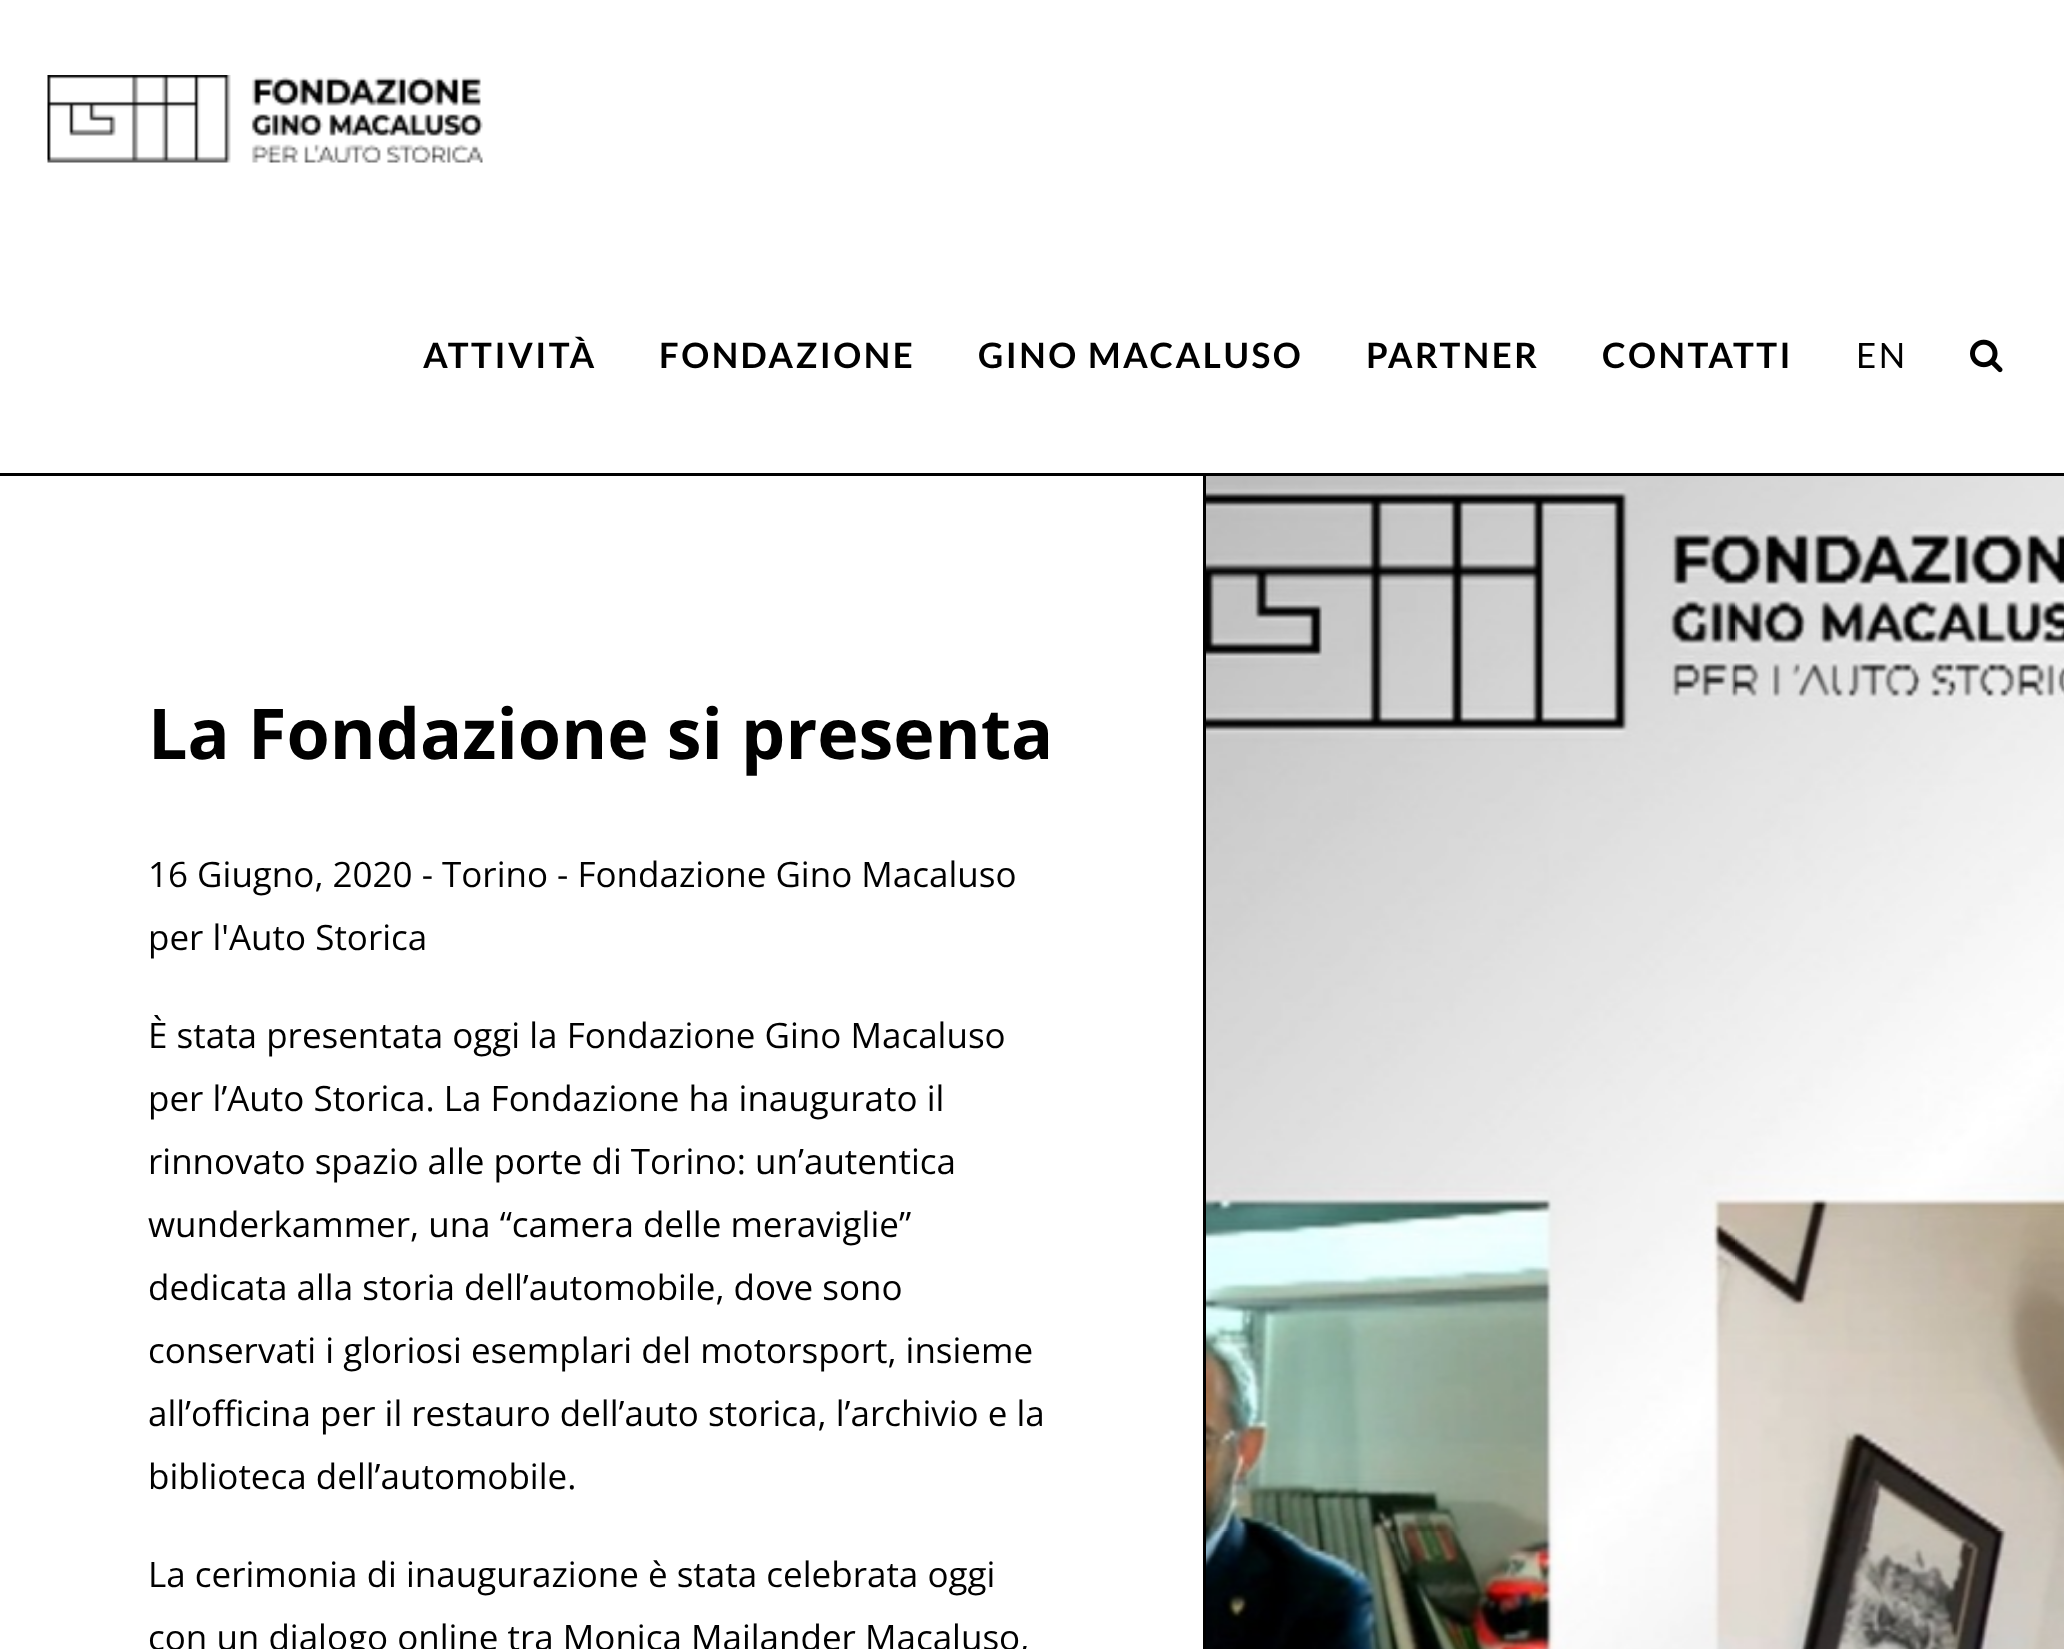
<svg xmlns="http://www.w3.org/2000/svg" width="2064" height="1649" viewBox="0 0 2064 1649">
  <style>
    .t1 { font: bold 35px Lato; letter-spacing: 2.5px; fill: #000; }
    .t2 { font: 35px Lato; letter-spacing: 2.5px; fill: #000; }
    .t3 { font: bold 70px Open Sans; fill: #000; }
    .t4 { font: 35px Open Sans; fill: #000; }
  </style>
  <rect width="100%" height="100%" fill="#fff"/>
  <image x="47" y="75" width="436" height="88" href="images/1.png"/>
  <text x="423" y="368" class="t1">ATTIVITÀ</text>
  <text x="659" y="368" class="t1">FONDAZIONE</text>
  <text x="978" y="368" class="t1">GINO MACALUSO</text>
  <text x="1366" y="368" class="t1">PARTNER</text>
  <text x="1602" y="368" class="t1">CONTATTI</text>
  <text x="1856" y="368" class="t2">EN</text>
  <image x="1970" y="339" width="33" height="34" href="images/2.png"/>
  <rect x="0" y="473" width="2064" height="3" fill="#000"/>
  <text x="148" y="759" class="t3">La Fondazione si presenta</text>
  <text x="148" y="887" class="t4">16 Giugno, 2020 - Torino - Fondazione Gino Macaluso</text>
  <text x="148" y="950" class="t4">per l'Auto Storica</text>
  <text x="148" y="1048" class="t4">È stata presentata oggi la Fondazione Gino Macaluso</text>
  <text x="148" y="1111" class="t4">per l’Auto Storica. La Fondazione ha inaugurato il</text>
  <text x="148" y="1174" class="t4">rinnovato spazio alle porte di Torino: un’autentica</text>
  <text x="148" y="1237" class="t4">wunderkammer, una “camera delle meraviglie”</text>
  <text x="148" y="1300" class="t4">dedicata alla storia dell’automobile, dove sono</text>
  <text x="148" y="1363" class="t4">conservati i gloriosi esemplari del motorsport, insieme</text>
  <text x="148" y="1426" class="t4">all’officina per il restauro dell’auto storica, l’archivio e la</text>
  <text x="148" y="1489" class="t4">biblioteca dell’automobile.</text>
  <text x="148" y="1587" class="t4">La cerimonia di inaugurazione è stata celebrata oggi</text>
  <text x="148" y="1650" class="t4">con un dialogo online tra Monica Mailander Macaluso,</text>
  <rect x="1203" y="473" width="3" height="1176" fill="#000"/>
  <image x="1206" y="476" width="858" height="1173" href="images/3.png"/>
</svg>
